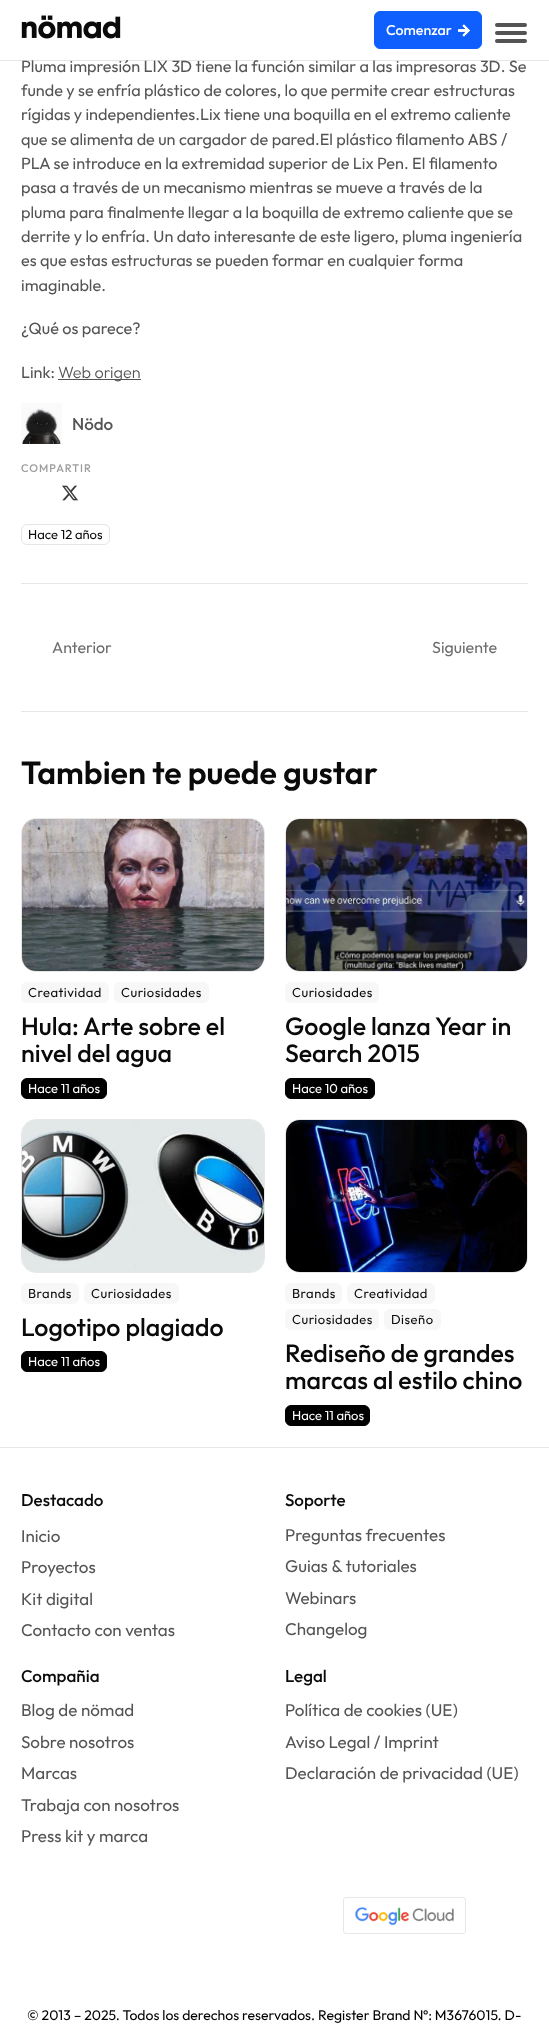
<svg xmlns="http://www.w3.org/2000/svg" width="549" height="2029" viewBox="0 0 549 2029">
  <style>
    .t1 { font: 16.25px Outfit; fill: #545454; }
    .t2 { font: 500 14.25px Outfit; fill: #fff; }
    .t3 { font: 300 16.25px Outfit; fill: #545454; }
    .t4 { font: 500 17px Outfit; fill: #545454; }
    .t5 { font: 500 11px Outfit; letter-spacing: 1px; fill: #9d9d9d; }
    .t6 { font: 13px Outfit; fill: #0a0a0a; }
    .t7 { font: 16px Outfit; fill: #6c6c6c; }
    .t8 { font: 600 32px Outfit; fill: #0a0a0a; }
    .t9 { font: 13px Outfit; letter-spacing: 0.5px; fill: #0a0a0a; }
    .t10 { font: 500 25px Outfit; fill: #0a0a0a; }
    .t11 { font: 13px Outfit; fill: #fff; }
    .t12 { font: 500 17px Outfit; fill: #0a0a0a; }
    .t13 { font: 17px Outfit; fill: #545454; }
    .t14 { font: 14px Outfit; fill: #000; }
  </style>
  <rect width="100%" height="100%" fill="#fff"/>
  <text x="21" y="72" class="t1">Pluma impresión LIX 3D tiene la función similar a las impresoras 3D. Se</text>
  <rect x="-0.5" y="-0.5" width="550" height="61" fill="none" stroke="#0a0a0a1a"/>
  <rect x="127" y="59" width="165" height="1" fill="#fff"/>
  <image x="21" y="15" width="100" height="24" href="images/1.png"/>
  <rect x="374.5" y="11.5" width="107" height="37" rx="5.5" fill="#0f5fff" stroke="#0f5fff"/>
  <text x="386" y="35" class="t2">Comenzar</text>
  <image x="458" y="24" width="12" height="13" href="images/2.png"/>
  <image x="458" y="24" width="12" height="13" href="images/3.png"/>
  <image x="458" y="24" width="12" height="13" href="images/4.png"/>
  <image x="458" y="24" width="12" height="13" href="images/5.png"/>
  <rect x="495" y="31" width="32" height="4" rx="2" fill="#545454"/>
  <rect x="495" y="23" width="32" height="4" rx="2" fill="#545454"/>
  <rect x="495" y="39" width="32" height="4" rx="2" fill="#545454"/>
  <text x="21" y="96" class="t1">funde y se enfría plástico de colores, lo que permite crear estructuras</text>
  <text x="21" y="120" class="t1">rígidas y independientes.Lix tiene una boquilla en el extremo caliente</text>
  <text x="21" y="145" class="t1">que se alimenta de un cargador de pared.El plástico filamento ABS /</text>
  <text x="21" y="169" class="t1">PLA se introduce en la extremidad superior de Lix Pen. El filamento</text>
  <text x="21" y="193" class="t1">pasa a través de un mecanismo mientras se mueve a través de la</text>
  <text x="21" y="218" class="t1">pluma para finalmente llegar a la boquilla de extremo caliente que se</text>
  <text x="21" y="242" class="t1">derrite y lo enfría. Un dato interesante de este ligero, pluma ingeniería</text>
  <text x="21" y="266" class="t1">es que estas estructuras se pueden formar en cualquier forma</text>
  <text x="21" y="291" class="t1">imaginable.</text>
  <text x="21" y="334" class="t1">¿Qué os parece?</text>
  <text x="21" y="378" class="t1">Link:</text>
  <rect x="58" y="379" width="83" height="1" fill="#545454"/>
  <text x="58" y="378" class="t3">Web origen</text>
  <image x="21" y="403" width="41" height="41" href="images/6.png"/>
  <text x="72" y="430" class="t4">Nödo</text>
  <text x="21" y="472" class="t5">COMPARTIR</text>
  <image x="62" y="485" width="16" height="16" href="images/7.png"/>
  <rect x="21.5" y="524.5" width="88" height="20" rx="5.5" fill="none" stroke="#e5e5e5"/>
  <text x="28" y="539" class="t6">Hace 12 años</text>
  <rect x="21" y="583" width="507" height="1" fill="#e7e7e7"/>
  <text x="52" y="653" class="t7">Anterior</text>
  <text x="432" y="653" class="t7">Siguiente</text>
  <rect x="21" y="711" width="507" height="1" fill="#e7e7e7"/>
  <text x="21" y="784" class="t8">Tambien te puede gustar</text>
  <rect x="21.5" y="818.5" width="243" height="153" rx="14.5" fill="none" stroke="#e7e7e7"/>
  <image x="22" y="819" width="242" height="152" href="images/8.png"/>
  <rect x="21" y="982" width="88" height="21" rx="6" fill="#f7f7f7"/>
  <text x="28" y="997" class="t9">Creatividad</text>
  <rect x="114" y="982" width="95" height="21" rx="6" fill="#f7f7f7"/>
  <text x="121" y="997" class="t9">Curiosidades</text>
  <text x="21" y="1035" class="t10">Hula: Arte sobre el</text>
  <text x="21" y="1062" class="t10">nivel del agua</text>
  <rect x="21.5" y="1078.5" width="85" height="20" rx="5.5" fill="#000" stroke="#000"/>
  <text x="28" y="1093" class="t11">Hace 11 años</text>
  <rect x="285.5" y="818.5" width="242" height="153" rx="14.5" fill="none" stroke="#e7e7e7"/>
  <image x="286" y="819" width="241" height="152" href="images/9.png"/>
  <rect x="285" y="982" width="94" height="21" rx="6" fill="#f7f7f7"/>
  <text x="292" y="997" class="t9">Curiosidades</text>
  <text x="285" y="1035" class="t10">Google lanza Year in</text>
  <text x="285" y="1062" class="t10">Search 2015</text>
  <rect x="285.5" y="1078.5" width="89" height="20" rx="5.5" fill="#000" stroke="#000"/>
  <text x="292" y="1093" class="t11">Hace 10 años</text>
  <rect x="21.5" y="1119.5" width="243" height="153" rx="14.5" fill="none" stroke="#e7e7e7"/>
  <image x="22" y="1120" width="242" height="152" href="images/10.png"/>
  <rect x="21" y="1283" width="58" height="21" rx="6" fill="#f7f7f7"/>
  <text x="28" y="1298" class="t9">Brands</text>
  <rect x="84" y="1283" width="95" height="21" rx="6" fill="#f7f7f7"/>
  <text x="91" y="1298" class="t9">Curiosidades</text>
  <text x="21" y="1336" class="t10">Logotipo plagiado</text>
  <rect x="21.5" y="1351.5" width="85" height="20" rx="5.5" fill="#000" stroke="#000"/>
  <text x="28" y="1366" class="t11">Hace 11 años</text>
  <rect x="285.5" y="1119.5" width="242" height="153" rx="14.5" fill="none" stroke="#e7e7e7"/>
  <image x="286" y="1120" width="241" height="152" href="images/11.png"/>
  <rect x="285" y="1283" width="57" height="21" rx="6" fill="#f7f7f7"/>
  <text x="292" y="1298" class="t9">Brands</text>
  <rect x="347" y="1283" width="88" height="21" rx="6" fill="#f7f7f7"/>
  <text x="354" y="1298" class="t9">Creatividad</text>
  <rect x="285" y="1309" width="94" height="21" rx="6" fill="#f7f7f7"/>
  <text x="292" y="1324" class="t9">Curiosidades</text>
  <rect x="384" y="1309" width="57" height="21" rx="6" fill="#f7f7f7"/>
  <text x="391" y="1324" class="t9">Diseño</text>
  <text x="285" y="1362" class="t10">Rediseño de grandes</text>
  <text x="285" y="1389" class="t10">marcas al estilo chino</text>
  <rect x="285.5" y="1405.5" width="84" height="20" rx="5.5" fill="#000" stroke="#000"/>
  <text x="292" y="1420" class="t11">Hace 11 años</text>
  <rect x="0" y="1447" width="549" height="1" fill="#e7e7e7"/>
  <text x="21" y="1506" class="t12">Destacado</text>
  <text x="21" y="1542" class="t13">Inicio</text>
  <text x="21" y="1573" class="t13">Proyectos</text>
  <text x="21" y="1605" class="t13">Kit digital</text>
  <text x="21" y="1636" class="t13">Contacto con ventas</text>
  <text x="285" y="1506" class="t12">Soporte</text>
  <text x="285" y="1541" class="t13">Preguntas frecuentes</text>
  <text x="285" y="1572" class="t13">Guias &amp; tutoriales</text>
  <text x="285" y="1604" class="t13">Webinars</text>
  <text x="285" y="1635" class="t13">Changelog</text>
  <text x="21" y="1682" class="t12">Compañia</text>
  <text x="21" y="1716" class="t13">Blog de nömad</text>
  <text x="21" y="1748" class="t13">Sobre nosotros</text>
  <text x="21" y="1779" class="t13">Marcas</text>
  <text x="21" y="1811" class="t13">Trabaja con nosotros</text>
  <text x="21" y="1842" class="t13">Press kit y marca</text>
  <text x="285" y="1682" class="t12">Legal</text>
  <text x="285" y="1716" class="t13">Política de cookies (UE)</text>
  <text x="285" y="1748" class="t13">Aviso Legal / Imprint</text>
  <text x="285" y="1779" class="t13">Declaración de privacidad (UE)</text>
  <rect x="343.5" y="1897.5" width="122" height="36" rx="2.5" fill="none" stroke="#e7e7e7"/>
  <image x="354" y="1907" width="100" height="19" href="images/12.png"/>
  <text x="27" y="2020" class="t14">© 2013 – 2025. Todos los derechos reservados. Register Brand Nº: M3676015. D-</text>
</svg>
